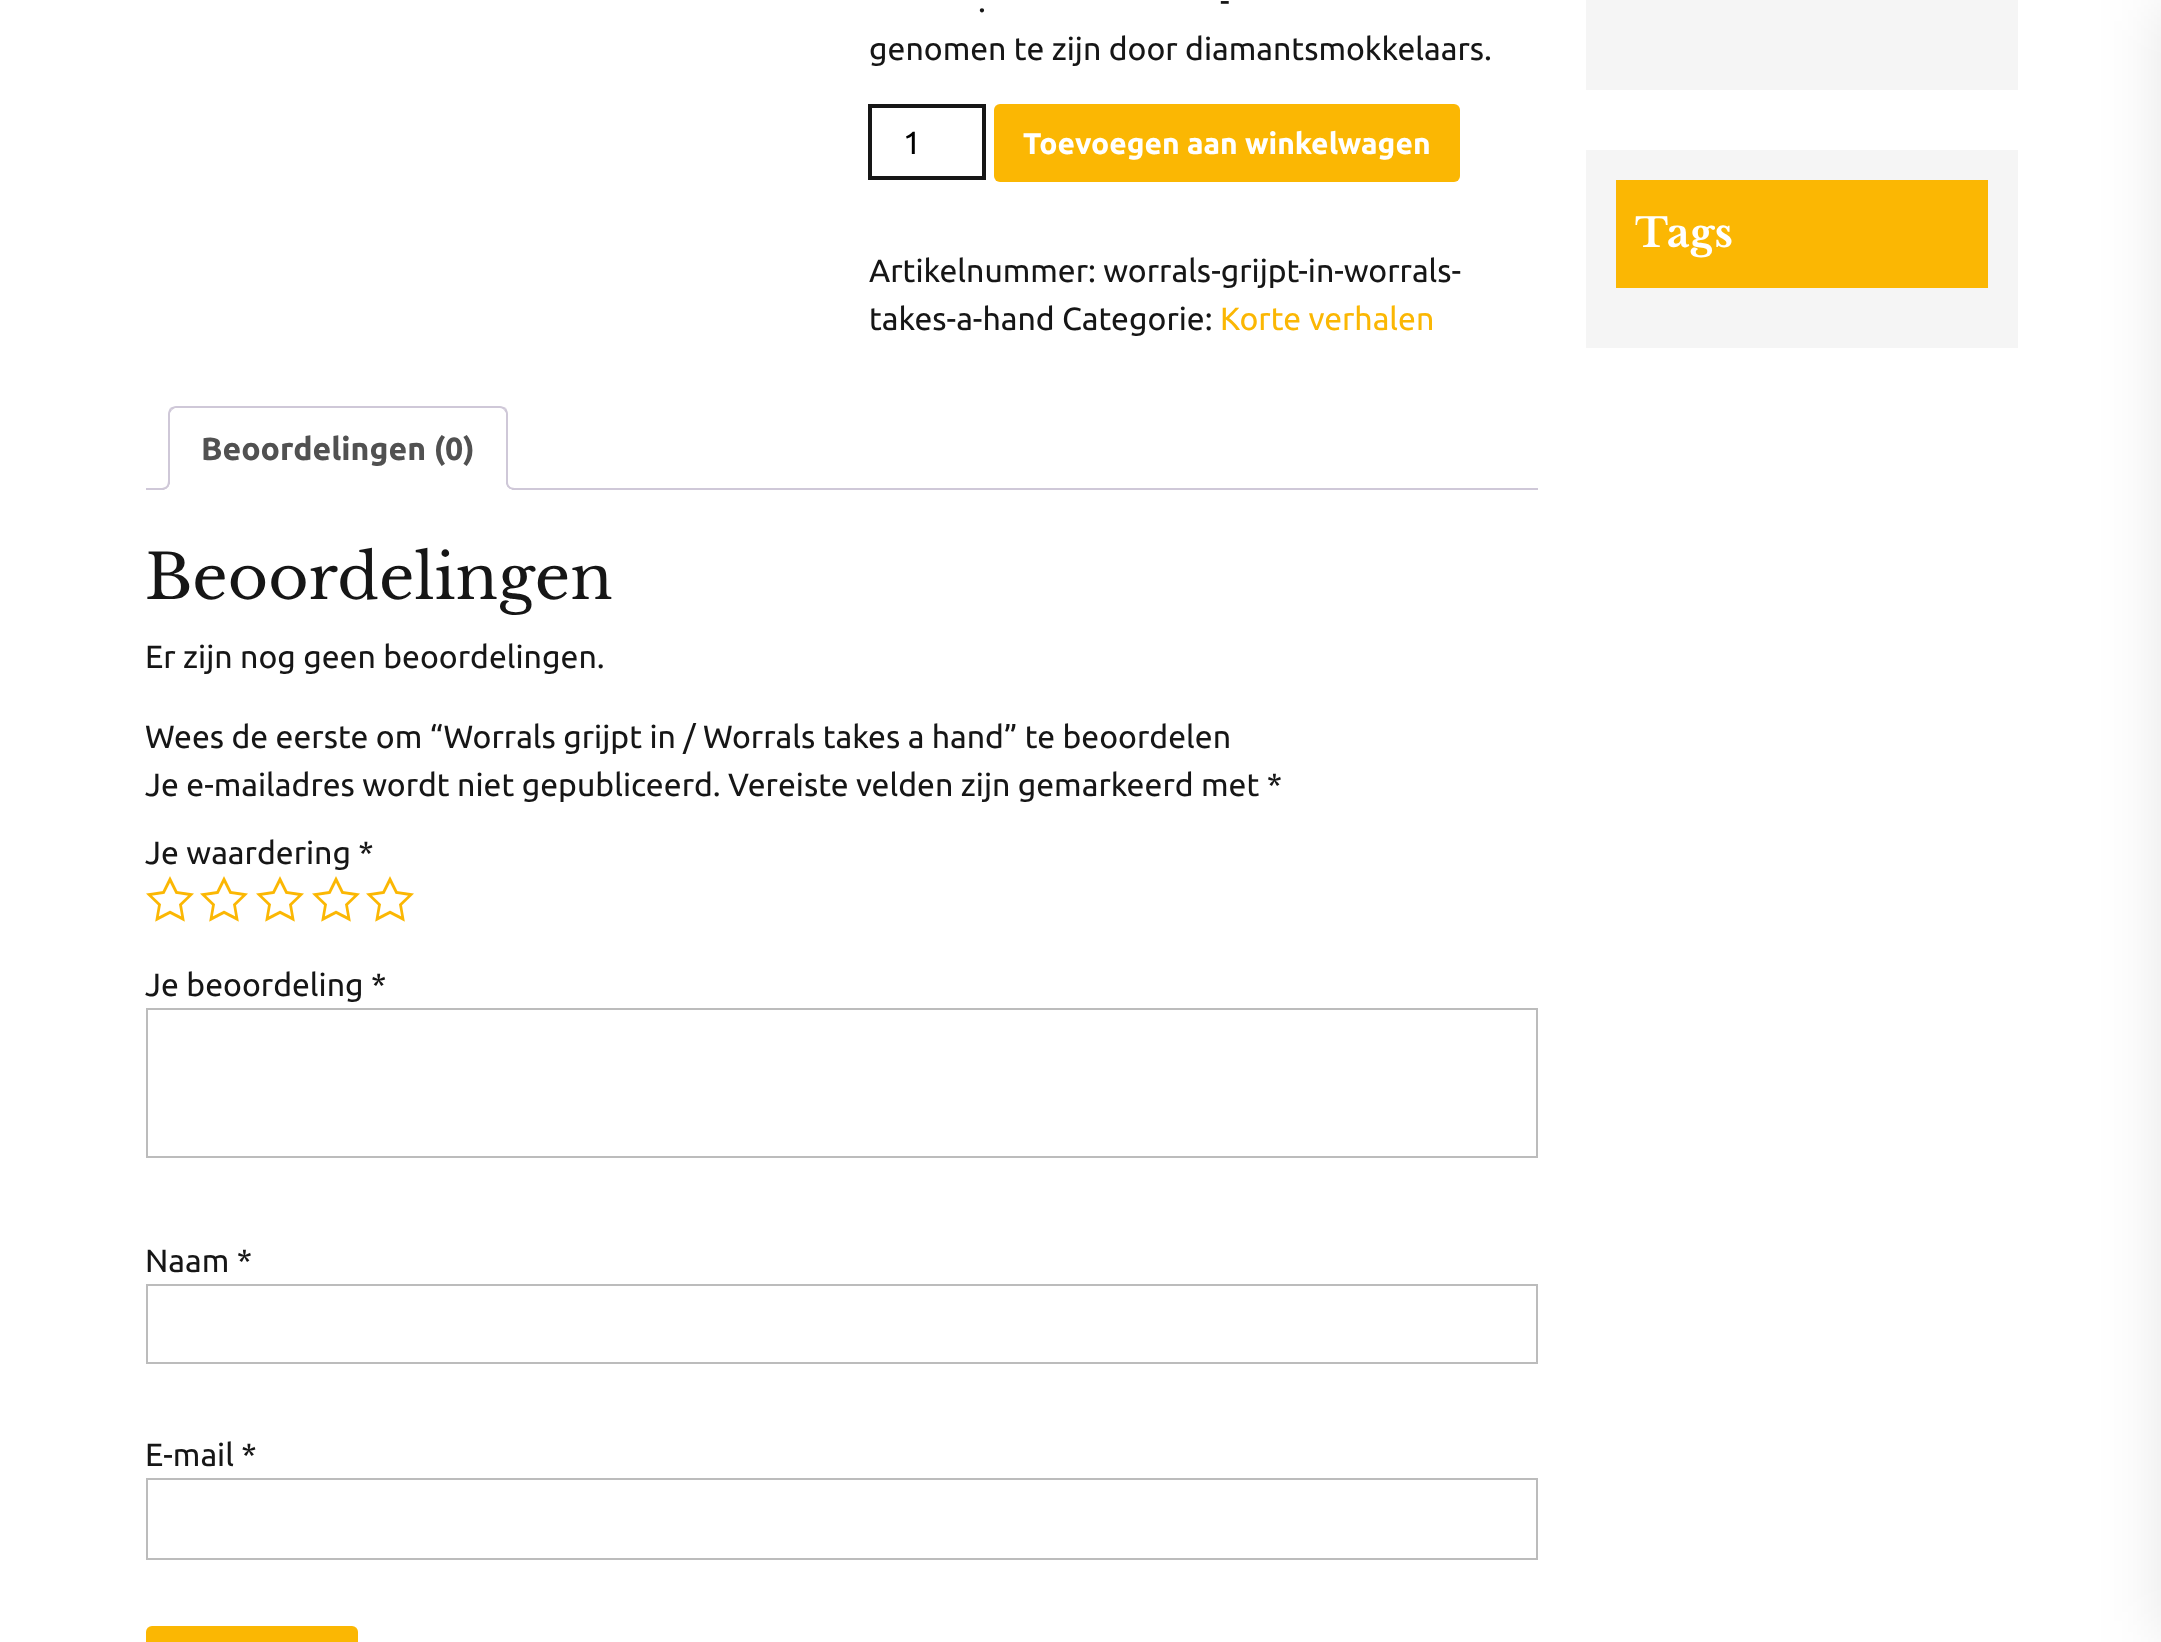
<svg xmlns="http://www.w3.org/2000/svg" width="2161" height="1642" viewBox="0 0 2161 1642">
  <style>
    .t1 { font: 32px Ubuntu; fill: #161616; }
    .t2 { font: 32px Ubuntu; fill: #000; }
    .t3 { font: bold 30px Ubuntu; fill: #fff; }
    .t4 { font: 32px Ubuntu; fill: #fbb703; }
    .t5 { font: bold 32px Ubuntu; fill: #515151; }
    .t6 { font: 61.75px Libre Baskerville; fill: #161616; }
    .t7 { font: bold 40px Libre Baskerville; fill: #fff; }
  </style>
  <defs>
    <clipPath id="clip1"><rect x="146" y="406" width="1392" height="84"/></clipPath>
  </defs>
  <rect width="100%" height="100%" fill="#fff"/>
  <text x="1220" y="12" class="t1">-</text>
  <text x="978" y="12" class="t1">.</text>
  <text x="869" y="60" class="t1">genomen te zijn door diamantsmokkelaars.</text>
  <rect x="870" y="106" width="114" height="72" fill="none" stroke="#161616" stroke-width="4"/>
  <text x="903" y="154" class="t2">1</text>
  <rect x="994" y="104" width="466" height="78" rx="6" fill="#fbb703"/>
  <text x="1023" y="154" class="t3">Toevoegen aan winkelwagen</text>
  <text x="869" y="282" class="t1">Artikelnummer: worrals-grijpt-in-worrals-</text>
  <text x="869" y="330" class="t1">takes-a-hand Categorie:</text>
  <text x="1220" y="330" class="t4">Korte verhalen</text>
  <rect x="146" y="488" width="1392" height="2" fill="#cfc8d8"/>
  <path d="M176 406H500C504.5 406 508 409.5 508 414V490H168V414C168 409.5 171.5 406 176 406Z" fill="#fff"/>
  <path d="M176 406C174 406 172 407 170 408L172 410L175 408H500C502 408 503 409 504 410L506 408C504 407 502 406 500 406Z" fill="#cfc8d8"/>
  <path d="M508 490V414C508 412 507 410 506 408L504 410L506 413V488Z" fill="#cfc8d8"/>
  <path d="M508 490L506 488H170L168 490Z" fill="#fff"/>
  <path d="M168 490L170 488V413L172 410L170 408C169 410 168 412 168 414Z" fill="#cfc8d8"/>
  <text x="201" y="460" class="t5">Beoordelingen (0)</text>
  <g clip-path="url(#clip1)">
    <path d="M164 489.5V494C171 494 174 491 174 484H169.5C169 487 167 489 164 489.5Z" fill="#fff"/>
  </g>
  <path d="M160 480H170C170 487 167 490 160 490ZM160 480H168C168 486 166 488 160 488Z" fill="#cfc8d8" fill-rule="evenodd"/>
  <g clip-path="url(#clip1)">
    <path d="M502 484C502 491 505 494 512 494V489.5C509 489 507 487 506.5 484Z" fill="#fff"/>
  </g>
  <path d="M506 480H516V490C511 490 506 488 506 482ZM508 480H516V488C512 488 508 487 508 482Z" fill="#cfc8d8" fill-rule="evenodd"/>
  <text x="145" y="599" class="t6">Beoordelingen</text>
  <text x="145" y="668" class="t1">Er zijn nog geen beoordelingen.</text>
  <text x="145" y="748" class="t1">Wees de eerste om “Worrals grijpt in / Worrals takes a hand” te beoordelen</text>
  <text x="145" y="796" class="t1">Je e-mailadres wordt niet gepubliceerd. Vereiste velden zijn gemarkeerd met *</text>
  <text x="145" y="864" class="t1">Je waardering *</text>
  <image x="146" y="876" width="48" height="46" href="images/1.png"/>
  <image x="200" y="876" width="48" height="46" href="images/1.png"/>
  <image x="256" y="876" width="48" height="46" href="images/1.png"/>
  <image x="312" y="876" width="48" height="46" href="images/1.png"/>
  <image x="366" y="876" width="48" height="46" href="images/1.png"/>
  <text x="145" y="996" class="t1">Je beoordeling *</text>
  <rect x="147" y="1009" width="1390" height="148" fill="none" stroke="#bcbcbc" stroke-width="2"/>
  <text x="145" y="1272" class="t1">Naam *</text>
  <rect x="147" y="1285" width="1390" height="78" fill="none" stroke="#bcbcbc" stroke-width="2"/>
  <text x="145" y="1466" class="t1">E-mail *</text>
  <rect x="147" y="1479" width="1390" height="80" fill="none" stroke="#bcbcbc" stroke-width="2"/>
  <rect x="146" y="1626" width="212" height="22" rx="6" fill="#fbb703"/>
  <rect x="1586" y="0" width="432" height="90" fill="#f5f5f5"/>
  <rect x="1586" y="150" width="432" height="198" fill="#f5f5f5"/>
  <rect x="1616" y="180" width="372" height="108" fill="#fbb703"/>
  <text x="1635" y="247" class="t7">Tags</text>
  <rect x="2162" y="0" width="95" height="1642" fill="#0000001a" filter="blur(32px)"/>
</svg>
